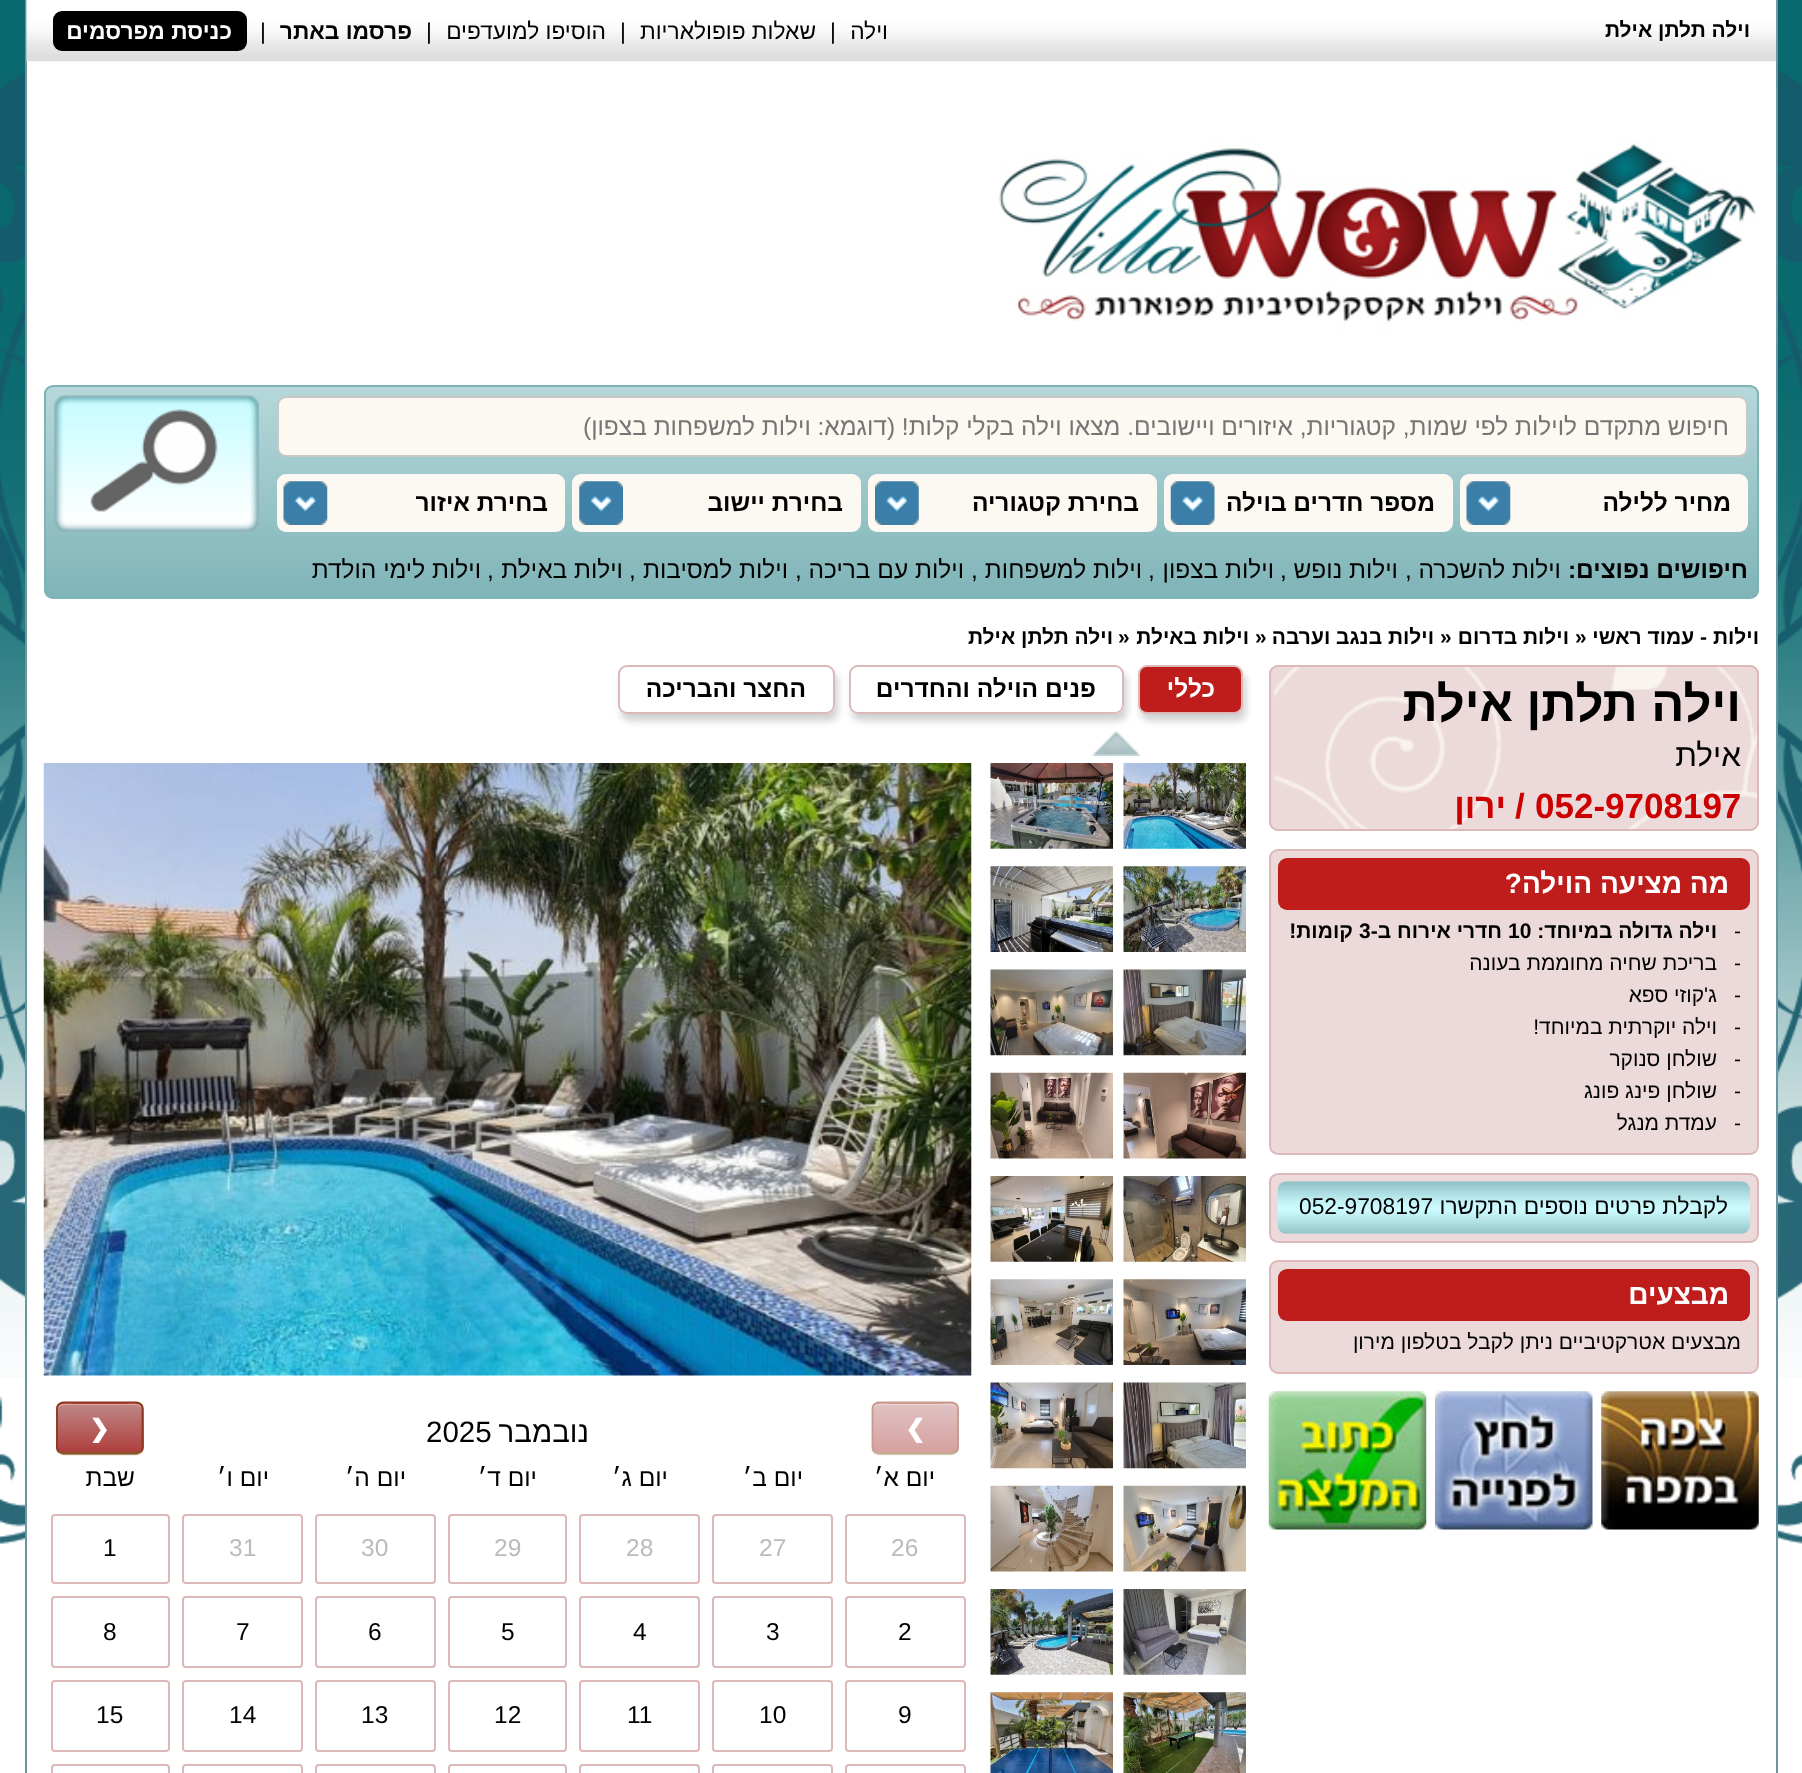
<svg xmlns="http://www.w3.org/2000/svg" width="1802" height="1773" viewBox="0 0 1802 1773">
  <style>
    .t1 { font: bold 21px Liberation Sans; direction: rtl; fill: #000; }
    .t2 { font: 22.75px Liberation Sans; direction: rtl; fill: #000; }
    .t3 { font: 22.75px Liberation Sans; fill: #000; }
    .t4 { font: bold 22.75px Liberation Sans; direction: rtl; fill: #000; }
    .t5 { font: bold 22.75px Liberation Sans; direction: rtl; fill: #fff; }
    .t6 { font: 24.5px Liberation Sans; direction: rtl; fill: #757575; }
    .t7 { font: bold 24.5px Liberation Sans; direction: rtl; fill: #000; }
    .t8 { font: 24.5px Liberation Sans; direction: rtl; fill: #000; }
    .t9 { font: 24.5px Liberation Sans; fill: #000; }
    .t10 { font: bold 21px Liberation Sans; fill: #000; }
    .t11 { font: bold 49px Liberation Sans; direction: rtl; fill: #000; }
    .t12 { font: 31.5px Liberation Sans; direction: rtl; fill: #000; }
    .t13 { font: bold 35px Liberation Sans; fill: #c00; }
    .t14 { font: bold 35px Liberation Sans; direction: rtl; fill: #c00; }
    .t15 { font: bold 28px Liberation Sans; direction: rtl; fill: #fff; }
    .t16 { font: 21px Liberation Sans; fill: #000; }
    .t17 { font: 21px Liberation Sans; direction: rtl; fill: #000; }
    .t18 { font: bold 24.5px Liberation Sans; direction: rtl; fill: #fff; }
    .t19 { font: bold 24.5px DejaVu Sans; fill: #fff; }
    .t20 { font: 29.5px Liberation Sans; direction: rtl; fill: #000; }
    .t21 { font: 29.5px Liberation Sans; fill: #000; }
    .t22 { font: 24.5px Liberation Sans; fill: #bbb; }
  </style>
  <defs>
    <clipPath id="clip1"><rect x="44" y="385" width="1715" height="214" rx="9"/></clipPath>
    <linearGradient id="g1" gradientUnits="userSpaceOnUse" x1="901" y1="597" x2="901" y2="387"><stop offset="0" stop-color="#7fb4b8"/><stop offset="1" stop-color="#b6d8da"/></linearGradient>
    <clipPath id="clip2"><path d="M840 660H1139V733H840ZM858 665H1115C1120 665 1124 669 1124 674V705C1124 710 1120 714 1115 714H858C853 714 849 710 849 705V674C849 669 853 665 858 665Z" clip-rule="evenodd"/></clipPath>
    <clipPath id="clip3"><path d="M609 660H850V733H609ZM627 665H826C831 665 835 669 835 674V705C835 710 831 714 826 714H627C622 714 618 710 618 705V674C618 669 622 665 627 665Z" clip-rule="evenodd"/></clipPath>
    <clipPath id="clip4"><rect x="872" y="1402" width="87" height="52" rx="7"/></clipPath>
    <linearGradient id="g2" gradientUnits="userSpaceOnUse" x1="915" y1="1355" x2="915" y2="1404"><stop offset="0" stop-color="#dfc3c3"/><stop offset="1" stop-color="#d69f9e"/></linearGradient>
    <linearGradient id="g3" gradientUnits="userSpaceOnUse" x1="915" y1="1404" x2="915" y2="1453"><stop offset="0" stop-color="#dfc3c3"/><stop offset="1" stop-color="#d69f9e"/></linearGradient>
    <clipPath id="clip5"><rect x="56" y="1402" width="88" height="52" rx="7"/></clipPath>
    <linearGradient id="g4" gradientUnits="userSpaceOnUse" x1="100" y1="1355" x2="100" y2="1404"><stop offset="0" stop-color="#bf8786"/><stop offset="1" stop-color="#ad3e3c"/></linearGradient>
    <linearGradient id="g5" gradientUnits="userSpaceOnUse" x1="100" y1="1404" x2="100" y2="1453"><stop offset="0" stop-color="#bf8786"/><stop offset="1" stop-color="#ad3e3c"/></linearGradient>
  </defs>
  <rect width="100%" height="100%" fill="#fff"/>
  <image x="0" y="0" width="1802" height="1378" href="images/1.png"/>
  <image x="0" y="69" width="1802" height="1475" href="images/2.png"/>
  <rect x="27" y="61" width="1749" height="1478" fill="#fff"/>
  <rect x="1776" y="0" width="2" height="1773" fill="#6c95a2"/>
  <rect x="25" y="0" width="2" height="1773" fill="#6c95a2"/>
  <image x="26" y="0" width="1751" height="62" href="images/3.png"/>
  <text x="1750" y="37" class="t1">וילה תלתן אילת</text>
  <text x="888" y="39" class="t2">וילה</text>
  <text x="830" y="39" class="t3">|</text>
  <text x="816" y="39" class="t2">שאלות פופולאריות</text>
  <text x="620" y="39" class="t3">|</text>
  <text x="606" y="39" class="t2">הוסיפו למועדפים</text>
  <text x="426" y="39" class="t3">|</text>
  <text x="412" y="39" class="t4">פרסמו באתר</text>
  <text x="260" y="39" class="t3">|</text>
  <rect x="53" y="11" width="194" height="40" rx="9" fill="#000"/>
  <text x="232" y="39" class="t5">כניסת מפרסמים</text>
  <image x="999" y="87" width="778" height="254" href="images/4.png"/>
  <g clip-path="url(#clip1)">
    <rect x="44" y="387" width="1715" height="210" fill="url(#g1)"/>
  </g>
  <rect x="45" y="386" width="1713" height="212" rx="8" fill="none" stroke="#7fb4b7" stroke-width="2"/>
  <rect x="278" y="397" width="1469" height="59" rx="8" fill="#fcf9f3" stroke="#c7c7c7" stroke-width="2"/>
  <text x="1729" y="435" class="t6">חיפוש מתקדם לוילות לפי שמות, קטגוריות, איזורים ויישובים. מצאו וילה בקלי קלות! (דוגמא: וילות למשפחות בצפון)</text>
  <image x="54" y="395" width="205" height="137" href="images/5.png"/>
  <rect x="1460" y="474" width="288" height="58" rx="9" fill="#fcf9f3"/>
  <image x="1466" y="481" width="45" height="44" href="images/6.png"/>
  <text x="1731" y="511" class="t7">מחיר ללילה</text>
  <rect x="1164" y="474" width="289" height="58" rx="9" fill="#fcf9f3"/>
  <image x="1170" y="481" width="45" height="44" href="images/7.png"/>
  <text x="1435" y="511" class="t7">מספר חדרים בוילה</text>
  <rect x="868" y="474" width="289" height="58" rx="9" fill="#fcf9f3"/>
  <image x="875" y="481" width="44" height="44" href="images/8.png"/>
  <text x="1139" y="511" class="t7">בחירת קטגוריה</text>
  <rect x="572" y="474" width="289" height="58" rx="9" fill="#fcf9f3"/>
  <image x="579" y="481" width="44" height="44" href="images/9.png"/>
  <text x="843" y="511" class="t7">בחירת יישוב</text>
  <rect x="277" y="474" width="288" height="58" rx="9" fill="#fcf9f3"/>
  <image x="283" y="481" width="45" height="44" href="images/10.png"/>
  <text x="548" y="511" class="t7">בחירת איזור</text>
  <text x="1748" y="578" class="t7">חיפושים נפוצים:</text>
  <text x="1561" y="578" class="t8">וילות להשכרה</text>
  <text x="1405" y="578" class="t9">,</text>
  <text x="1398" y="578" class="t8">וילות נופש</text>
  <text x="1280" y="578" class="t9">,</text>
  <text x="1274" y="578" class="t8">וילות בצפון</text>
  <text x="1148" y="578" class="t9">,</text>
  <text x="1142" y="578" class="t8">וילות למשפחות</text>
  <text x="971" y="578" class="t9">,</text>
  <text x="964" y="578" class="t8">וילות עם בריכה</text>
  <text x="795" y="578" class="t9">,</text>
  <text x="788" y="578" class="t8">וילות למסיבות</text>
  <text x="629" y="578" class="t9">,</text>
  <text x="623" y="578" class="t8">וילות באילת</text>
  <text x="487" y="578" class="t9">,</text>
  <text x="481" y="578" class="t8">וילות לימי הולדת</text>
  <text x="1759" y="644" class="t1">וילות - עמוד ראשי</text>
  <text x="1575" y="644" class="t10">»</text>
  <text x="1569" y="644" class="t1">וילות בדרום</text>
  <text x="1440" y="644" class="t10">»</text>
  <text x="1434" y="644" class="t1">וילות בנגב וערבה</text>
  <text x="1255" y="644" class="t10">»</text>
  <text x="1249" y="644" class="t1">וילות באילת</text>
  <text x="1118" y="644" class="t10">»</text>
  <text x="1113" y="644" class="t1">וילה תלתן אילת</text>
  <rect x="1269" y="665" width="490" height="166" rx="9" fill="#ecd9d9"/>
  <image x="1273" y="667" width="484" height="162" href="images/11.png"/>
  <rect x="1270" y="666" width="488" height="164" rx="8" fill="none" stroke="#dcb8b8" stroke-width="2"/>
  <text x="1741" y="721" class="t11">וילה תלתן אילת</text>
  <text x="1741" y="766" class="t12">אילת</text>
  <text x="1535" y="818" class="t13">052-9708197</text>
  <text x="1515" y="818" class="t13">/</text>
  <text x="1506" y="818" class="t14">ירון</text>
  <rect x="1270" y="850" width="488" height="304" rx="8" fill="#ecd9d9" stroke="#dcb8b8" stroke-width="2"/>
  <rect x="1278" y="858" width="472" height="52" rx="9" fill="#bf1c1c"/>
  <text x="1729" y="893" class="t15">מה מציעה הוילה?</text>
  <text x="1734" y="938" class="t16">-</text>
  <text x="1717" y="938" class="t1">וילה גדולה במיוחד:</text>
  <text x="1508" y="938" class="t10">10</text>
  <text x="1502" y="938" class="t1">חדרי אירוח ב-</text>
  <text x="1359" y="938" class="t10">3</text>
  <text x="1353" y="938" class="t1">קומות!</text>
  <text x="1734" y="970" class="t16">-</text>
  <text x="1717" y="970" class="t17">בריכת שחיה מחוממת בעונה</text>
  <text x="1734" y="1002" class="t16">-</text>
  <text x="1717" y="1002" class="t17">ג'קוזי ספא</text>
  <text x="1734" y="1034" class="t16">-</text>
  <text x="1717" y="1034" class="t17">וילה יוקרתית במיוחד!</text>
  <text x="1734" y="1066" class="t16">-</text>
  <text x="1717" y="1066" class="t17">שולחן סנוקר</text>
  <text x="1734" y="1098" class="t16">-</text>
  <text x="1717" y="1098" class="t17">שולחן פינג פונג</text>
  <text x="1734" y="1130" class="t16">-</text>
  <text x="1717" y="1130" class="t17">עמדת מנגל</text>
  <rect x="1270" y="1174" width="488" height="68" rx="8" fill="#ecd9d9" stroke="#dcb8b8" stroke-width="2"/>
  <image x="1277" y="1181" width="473" height="53" href="images/12.png"/>
  <text x="1728" y="1214" class="t2">לקבלת פרטים נוספים התקשרו</text>
  <text x="1299" y="1214" class="t3">052-9708197</text>
  <rect x="1270" y="1261" width="488" height="112" rx="8" fill="#ecd9d9" stroke="#dcb8b8" stroke-width="2"/>
  <rect x="1278" y="1269" width="472" height="52" rx="9" fill="#bf1c1c"/>
  <text x="1729" y="1304" class="t15">מבצעים</text>
  <text x="1741" y="1349" class="t17">מבצעים אטרקטיביים ניתן לקבל בטלפון מירון</text>
  <image x="1601" y="1391" width="158" height="139" href="images/13.png"/>
  <image x="1435" y="1391" width="158" height="139" href="images/14.png"/>
  <image x="1268" y="1391" width="159" height="139" href="images/15.png"/>
  <rect x="1141" y="672" width="105" height="49" rx="9" fill="#d1d1d1" filter="blur(3.5px)"/>
  <rect x="1139" y="666" width="103" height="47" rx="8" fill="#bf1c1c" stroke="#dcb8b8" stroke-width="2"/>
  <text x="1215" y="697" class="t18">כללי</text>
  <g clip-path="url(#clip2)">
    <rect x="852" y="672" width="275" height="49" rx="9" fill="#d1d1d1" filter="blur(3.5px)"/>
  </g>
  <rect x="850" y="666" width="273" height="47" rx="8" fill="none" stroke="#dcb8b8" stroke-width="2"/>
  <text x="1096" y="697" class="t7">פנים הוילה והחדרים</text>
  <g clip-path="url(#clip3)">
    <rect x="621" y="672" width="217" height="49" rx="9" fill="#d1d1d1" filter="blur(3.5px)"/>
  </g>
  <rect x="619" y="666" width="215" height="47" rx="8" fill="none" stroke="#dcb8b8" stroke-width="2"/>
  <text x="806" y="697" class="t7">החצר והבריכה</text>
  <image x="1092" y="731" width="49" height="25" href="images/16.png"/>
  <image x="1123" y="763" width="123" height="86" href="images/17.png"/>
  <image x="990" y="763" width="123" height="86" href="images/18.png"/>
  <image x="1123" y="866" width="123" height="86" href="images/19.png"/>
  <image x="990" y="866" width="123" height="86" href="images/20.png"/>
  <image x="1123" y="969" width="123" height="87" href="images/21.png"/>
  <image x="990" y="969" width="123" height="87" href="images/22.png"/>
  <image x="1123" y="1072" width="123" height="87" href="images/23.png"/>
  <image x="990" y="1072" width="123" height="87" href="images/24.png"/>
  <image x="1123" y="1176" width="123" height="86" href="images/25.png"/>
  <image x="990" y="1176" width="123" height="86" href="images/26.png"/>
  <image x="1123" y="1279" width="123" height="86" href="images/27.png"/>
  <image x="990" y="1279" width="123" height="86" href="images/28.png"/>
  <image x="1123" y="1382" width="123" height="87" href="images/29.png"/>
  <image x="990" y="1382" width="123" height="87" href="images/30.png"/>
  <image x="1123" y="1485" width="123" height="87" href="images/31.png"/>
  <image x="990" y="1485" width="123" height="87" href="images/32.png"/>
  <image x="1123" y="1589" width="123" height="86" href="images/33.png"/>
  <image x="990" y="1589" width="123" height="86" href="images/34.png"/>
  <image x="1123" y="1692" width="123" height="81" href="images/35.png"/>
  <image x="990" y="1692" width="123" height="81" href="images/36.png"/>
  <image x="43" y="763" width="929" height="613" href="images/37.png"/>
  <rect x="873" y="1405" width="84" height="49" rx="5" fill="#d79191" filter="blur(1px)"/>
  <g clip-path="url(#clip4)">
    <rect x="872" y="1402" width="87" height="2" fill="url(#g2)"/>
    <rect x="872" y="1404" width="87" height="49" fill="url(#g3)"/>
  </g>
  <path d="M878 1405H952C955 1405 957 1408 957 1410C957 1401 945 1404 940 1404H890C885 1404 873 1401 873 1410C873 1408 876 1405 878 1405Z" fill="#efd2d2"/>
  <path d="M956.5 1451.5C955 1452.5 953.5 1453.5 952 1453.5H878.5C877 1453.5 875.5 1452.5 874 1451.5" fill="none" stroke="#bcb08d" stroke-width="1.8"/>
  <path d="M874 1451.5C873 1450.5 872.5 1449 872.5 1447V1409C872.5 1407 873 1405.5 874 1404.5C875.5 1403.5 877 1402.5 878.5 1402.5H952C953.5 1402.5 955 1403.5 956.5 1404.5C957.5 1405.5 958 1407 958 1409V1447C958 1449 957.5 1450.5 956.5 1451.5" fill="none" stroke="#c79c8f" stroke-width="1.8"/>
  <text x="905" y="1437" class="t19">❮</text>
  <rect x="58" y="1405" width="84" height="49" rx="5" fill="#ae2323" filter="blur(1px)"/>
  <g clip-path="url(#clip5)">
    <rect x="56" y="1402" width="88" height="2" fill="url(#g4)"/>
    <rect x="56" y="1404" width="88" height="49" fill="url(#g5)"/>
  </g>
  <path d="M63 1405H136C139 1405 142 1408 142 1410C142 1401 130 1404 125 1404H75C70 1404 58 1401 58 1410C58 1408 60 1405 63 1405Z" fill="#dfa5a4"/>
  <path d="M141 1451.5C139.5 1452.5 138 1453.5 136.5 1453.5H63C61.5 1453.5 60 1452.5 58.5 1451.5" fill="none" stroke="#79601b" stroke-width="1.8"/>
  <path d="M58.5 1451.5C57.5 1450.5 57 1449 57 1447V1409C57 1407 57.5 1405.5 58.5 1404.5C60 1403.5 61.5 1402.5 63 1402.5H136.5C138 1402.5 139.5 1403.5 141 1404.5C142 1405.5 142.5 1407 142.5 1409V1447C142.5 1449 142 1450.5 141 1451.5" fill="none" stroke="#8e391f" stroke-width="1.8"/>
  <text x="89" y="1437" class="t19">❯</text>
  <text x="589" y="1442" class="t20">נובמבר</text>
  <text x="426" y="1442" class="t21">2025</text>
  <text x="935" y="1486" class="t8">יום א׳</text>
  <text x="803" y="1486" class="t8">יום ב׳</text>
  <text x="668" y="1486" class="t8">יום ג׳</text>
  <text x="537" y="1486" class="t8">יום ד׳</text>
  <text x="406" y="1486" class="t8">יום ה׳</text>
  <text x="269" y="1486" class="t8">יום ו׳</text>
  <text x="135" y="1486" class="t8">שבת</text>
  <rect x="846" y="1515" width="119" height="68" rx="3" fill="none" stroke="#dcb8b8" stroke-width="2"/>
  <text x="891" y="1556" class="t22">26</text>
  <rect x="713" y="1515" width="119" height="68" rx="3" fill="none" stroke="#dcb8b8" stroke-width="2"/>
  <text x="759" y="1556" class="t22">27</text>
  <rect x="580" y="1515" width="119" height="68" rx="3" fill="none" stroke="#dcb8b8" stroke-width="2"/>
  <text x="626" y="1556" class="t22">28</text>
  <rect x="449" y="1515" width="117" height="68" rx="3" fill="none" stroke="#dcb8b8" stroke-width="2"/>
  <text x="494" y="1556" class="t22">29</text>
  <rect x="316" y="1515" width="119" height="68" rx="3" fill="none" stroke="#dcb8b8" stroke-width="2"/>
  <text x="361" y="1556" class="t22">30</text>
  <rect x="183" y="1515" width="119" height="68" rx="3" fill="none" stroke="#dcb8b8" stroke-width="2"/>
  <text x="229" y="1556" class="t22">31</text>
  <rect x="52" y="1515" width="117" height="68" rx="3" fill="none" stroke="#dcb8b8" stroke-width="2"/>
  <text x="103" y="1556" class="t9">1</text>
  <rect x="846" y="1597" width="119" height="70" rx="3" fill="none" stroke="#dcb8b8" stroke-width="2"/>
  <text x="898" y="1640" class="t9">2</text>
  <rect x="713" y="1597" width="119" height="70" rx="3" fill="none" stroke="#dcb8b8" stroke-width="2"/>
  <text x="766" y="1640" class="t9">3</text>
  <rect x="580" y="1597" width="119" height="70" rx="3" fill="none" stroke="#dcb8b8" stroke-width="2"/>
  <text x="633" y="1640" class="t9">4</text>
  <rect x="449" y="1597" width="117" height="70" rx="3" fill="none" stroke="#dcb8b8" stroke-width="2"/>
  <text x="501" y="1640" class="t9">5</text>
  <rect x="316" y="1597" width="119" height="70" rx="3" fill="none" stroke="#dcb8b8" stroke-width="2"/>
  <text x="368" y="1640" class="t9">6</text>
  <rect x="183" y="1597" width="119" height="70" rx="3" fill="none" stroke="#dcb8b8" stroke-width="2"/>
  <text x="236" y="1640" class="t9">7</text>
  <rect x="52" y="1597" width="117" height="70" rx="3" fill="none" stroke="#dcb8b8" stroke-width="2"/>
  <text x="103" y="1640" class="t9">8</text>
  <rect x="846" y="1681" width="119" height="70" rx="3" fill="none" stroke="#dcb8b8" stroke-width="2"/>
  <text x="898" y="1723" class="t9">9</text>
  <rect x="713" y="1681" width="119" height="70" rx="3" fill="none" stroke="#dcb8b8" stroke-width="2"/>
  <text x="759" y="1723" class="t9">10</text>
  <rect x="580" y="1681" width="119" height="70" rx="3" fill="none" stroke="#dcb8b8" stroke-width="2"/>
  <text x="627" y="1723" class="t9">11</text>
  <rect x="449" y="1681" width="117" height="70" rx="3" fill="none" stroke="#dcb8b8" stroke-width="2"/>
  <text x="494" y="1723" class="t9">12</text>
  <rect x="316" y="1681" width="119" height="70" rx="3" fill="none" stroke="#dcb8b8" stroke-width="2"/>
  <text x="361" y="1723" class="t9">13</text>
  <rect x="183" y="1681" width="119" height="70" rx="3" fill="none" stroke="#dcb8b8" stroke-width="2"/>
  <text x="229" y="1723" class="t9">14</text>
  <rect x="52" y="1681" width="117" height="70" rx="3" fill="none" stroke="#dcb8b8" stroke-width="2"/>
  <text x="96" y="1723" class="t9">15</text>
  <rect x="846" y="1765" width="119" height="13" rx="3" fill="none" stroke="#dcb8b8" stroke-width="2"/>
  <rect x="713" y="1765" width="119" height="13" rx="3" fill="none" stroke="#dcb8b8" stroke-width="2"/>
  <rect x="580" y="1765" width="119" height="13" rx="3" fill="none" stroke="#dcb8b8" stroke-width="2"/>
  <rect x="449" y="1765" width="117" height="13" rx="3" fill="none" stroke="#dcb8b8" stroke-width="2"/>
  <rect x="316" y="1765" width="119" height="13" rx="3" fill="none" stroke="#dcb8b8" stroke-width="2"/>
  <rect x="183" y="1765" width="119" height="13" rx="3" fill="none" stroke="#dcb8b8" stroke-width="2"/>
  <rect x="52" y="1765" width="117" height="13" rx="3" fill="none" stroke="#dcb8b8" stroke-width="2"/>
</svg>
